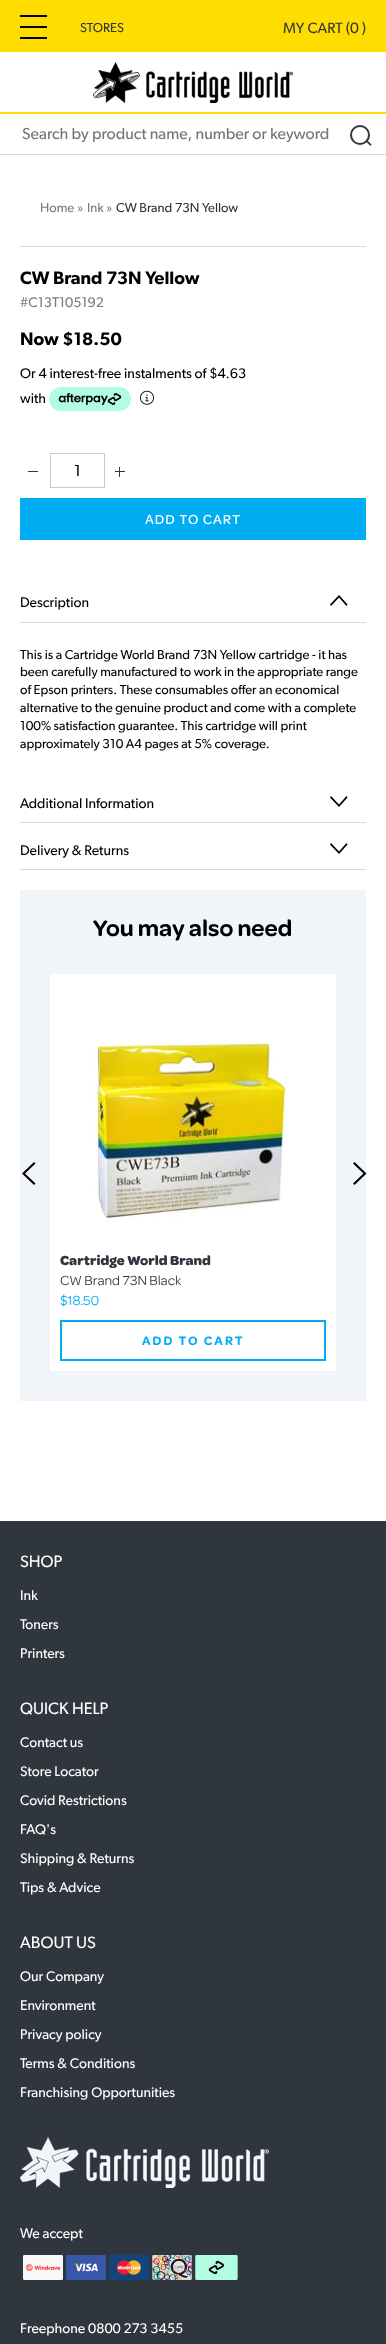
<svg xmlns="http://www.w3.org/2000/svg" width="386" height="2344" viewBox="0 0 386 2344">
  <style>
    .t1 { font: 13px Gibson; fill: #30363d; }
    .t2 { font: 15px Gibson; fill: #30363d; }
    .t3 { font: 16px Gibson; fill: #757575; }
    .t4 { font: 13px Gibson; fill: #727d89; }
    .t5 { font: 600 18px Gibson; fill: #000; }
    .t6 { font: 14px Gibson; fill: #727d89; }
    .t7 { font: 14px Gibson; fill: #000; }
    .t8 { font: 16px Gibson; fill: #000; }
    .t9 { font: 500 14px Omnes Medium; letter-spacing: 1px; fill: #fff; }
    .t10 { font: 13px Gibson; fill: #000; }
    .t11 { font: 600 24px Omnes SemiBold; fill: #000; }
    .t12 { font: bold 14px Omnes; fill: #30363d; }
    .t13 { font: 14px Omnes; fill: #30363d; }
    .t14 { font: 14px Omnes; fill: #00acf2; }
    .t15 { font: 600 13px Omnes SemiBold; letter-spacing: 2px; fill: #00acf2; }
    .t16 { font: 16.5px Gibson; fill: #fff; }
    .t17 { font: 14px Gibson; fill: #fff; }
  </style>
  <rect width="100%" height="100%" fill="#fff"/>
  <rect x="0" y="0" width="386" height="52" fill="#fd0"/>
  <rect x="20" y="15" width="27" height="2" fill="#000"/>
  <rect x="20" y="26" width="27" height="2" fill="#000"/>
  <rect x="20" y="37" width="27" height="2" fill="#000"/>
  <text x="80" y="32" class="t1">STORES</text>
  <text x="283" y="33" class="t2">MY CART (0 )</text>
  <image x="93" y="62" width="200" height="41" href="images/1.png"/>
  <rect x="0" y="112" width="386" height="2" fill="#fd0"/>
  <rect x="0" y="154" width="386" height="1" fill="#d8d8d8"/>
  <text x="22" y="139" class="t3">Search by product name, number or keyword</text>
  <circle cx="360" cy="135" r="9" fill="none" stroke="#30363d" stroke-width="2"/>
  <path d="M366.5 139.5L371.5 144.5L370.5 146L365.5 141Z" fill="#30363d"/>
  <text x="40" y="212" class="t4">Home</text>
  <text x="77" y="212" class="t4">»</text>
  <text x="87" y="212" class="t4">Ink</text>
  <text x="106" y="212" class="t4">»</text>
  <text x="116" y="212" class="t1">CW Brand 73N Yellow</text>
  <rect x="20" y="246" width="346" height="1" fill="#d8d8d8"/>
  <text x="20" y="284" class="t5">CW Brand 73N Yellow</text>
  <text x="20" y="307" class="t6">#C13T105192</text>
  <text x="20" y="345" class="t5">Now $18.50</text>
  <text x="20" y="378" class="t7">Or 4 interest-free instalments of $4.63</text>
  <text x="20" y="403" class="t7">with</text>
  <image x="49" y="387" width="82" height="24" href="images/2.png"/>
  <image x="140" y="390" width="14" height="15" href="images/3.png"/>
  <rect x="28" y="471" width="10" height="1" fill="#30363d"/>
  <rect x="50.5" y="453.5" width="54" height="34" fill="none" stroke="#c7cacd"/>
  <text x="74" y="476" class="t8">1</text>
  <rect x="119" y="467" width="1" height="10" fill="#30363d"/>
  <rect x="115" y="471" width="10" height="1" fill="#30363d"/>
  <rect x="20" y="498" width="346" height="42" fill="#00acf2"/>
  <text x="145" y="524" class="t9">ADD TO CART</text>
  <rect x="20" y="622" width="346" height="1" fill="#d8d8d8"/>
  <text x="20" y="607" class="t7">Description</text>
  <path d="M346.5 606L339 597.5L331 606L330 604.5L339 595L347.5 604.5Z" fill="#000"/>
  <text x="20" y="659" class="t10">This is a Cartridge World Brand 73N Yellow cartridge - it has</text>
  <text x="20" y="676" class="t10">been carefully manufactured to work in the appropriate range</text>
  <text x="20" y="694" class="t10">of Epson printers. These consumables offer an economical</text>
  <text x="20" y="712" class="t10">alternative to the genuine product and come with a complete</text>
  <text x="20" y="730" class="t10">100% satisfaction guarantee. This cartridge will print</text>
  <text x="20" y="748" class="t10">approximately 310 A4 pages at 5% coverage.</text>
  <rect x="20" y="822" width="346" height="1" fill="#d8d8d8"/>
  <text x="20" y="808" class="t7">Additional Information</text>
  <path d="M346.5 796L347.5 797.5L339 807L330 797.5L331 796L339 804.5Z" fill="#000"/>
  <rect x="20" y="869" width="346" height="1" fill="#d8d8d8"/>
  <text x="20" y="855" class="t7">Delivery &amp; Returns</text>
  <path d="M346.5 843L347.5 844.5L339 854L330 844.5L331 843L339 851.5Z" fill="#000"/>
  <rect x="20" y="890" width="346" height="511" fill="#f1f5f9"/>
  <text x="93" y="936" class="t11">You may also need</text>
  <path d="M35.5 1163.5L25 1173.5L35.5 1183.5L34 1185L22 1173.5L34 1162Z" fill="#000"/>
  <path d="M353 1163.5L354.5 1162L366.5 1173.5L354.5 1185L353 1183.5L363.5 1173.5Z" fill="#000"/>
  <rect x="50" y="974" width="286" height="397" fill="#fff"/>
  <image x="95" y="1039" width="192" height="180" href="images/4.png"/>
  <text x="60" y="1265" class="t12">Cartridge World Brand</text>
  <text x="60" y="1285" class="t13">CW Brand 73N Black</text>
  <text x="60" y="1305" class="t14">$18.50</text>
  <rect x="61" y="1321" width="264" height="39" fill="none" stroke="#00acf2" stroke-width="2"/>
  <text x="142" y="1345" class="t15">ADD TO CART</text>
  <rect x="0" y="1521" width="386" height="823" fill="#30363d"/>
  <text x="20" y="1567" class="t16">SHOP</text>
  <text x="20" y="1600" class="t17">Ink</text>
  <text x="20" y="1629" class="t17">Toners</text>
  <text x="20" y="1658" class="t17">Printers</text>
  <text x="20" y="1714" class="t16">QUICK HELP</text>
  <text x="20" y="1747" class="t17">Contact us</text>
  <text x="20" y="1776" class="t17">Store Locator</text>
  <text x="20" y="1805" class="t17">Covid Restrictions</text>
  <text x="20" y="1834" class="t17">FAQ's</text>
  <text x="20" y="1863" class="t17">Shipping &amp; Returns</text>
  <text x="20" y="1892" class="t17">Tips &amp; Advice</text>
  <text x="20" y="1948" class="t16">ABOUT US</text>
  <text x="20" y="1981" class="t17">Our Company</text>
  <text x="20" y="2010" class="t17">Environment</text>
  <text x="20" y="2039" class="t17">Privacy policy</text>
  <text x="20" y="2068" class="t17">Terms &amp; Conditions</text>
  <text x="20" y="2097" class="t17">Franchising Opportunities</text>
  <image x="20" y="2137" width="249" height="51" href="images/5.png"/>
  <text x="20" y="2238" class="t17">We accept</text>
  <image x="23" y="2255" width="40" height="25" href="images/6.png"/>
  <image x="66" y="2255" width="40" height="25" href="images/7.png"/>
  <image x="109" y="2255" width="40" height="25" href="images/8.png"/>
  <image x="152" y="2255" width="40" height="25" href="images/9.png"/>
  <image x="195" y="2255" width="43" height="25" href="images/10.png"/>
  <text x="20" y="2333" class="t17">Freephone 0800 273 3455</text>
</svg>
